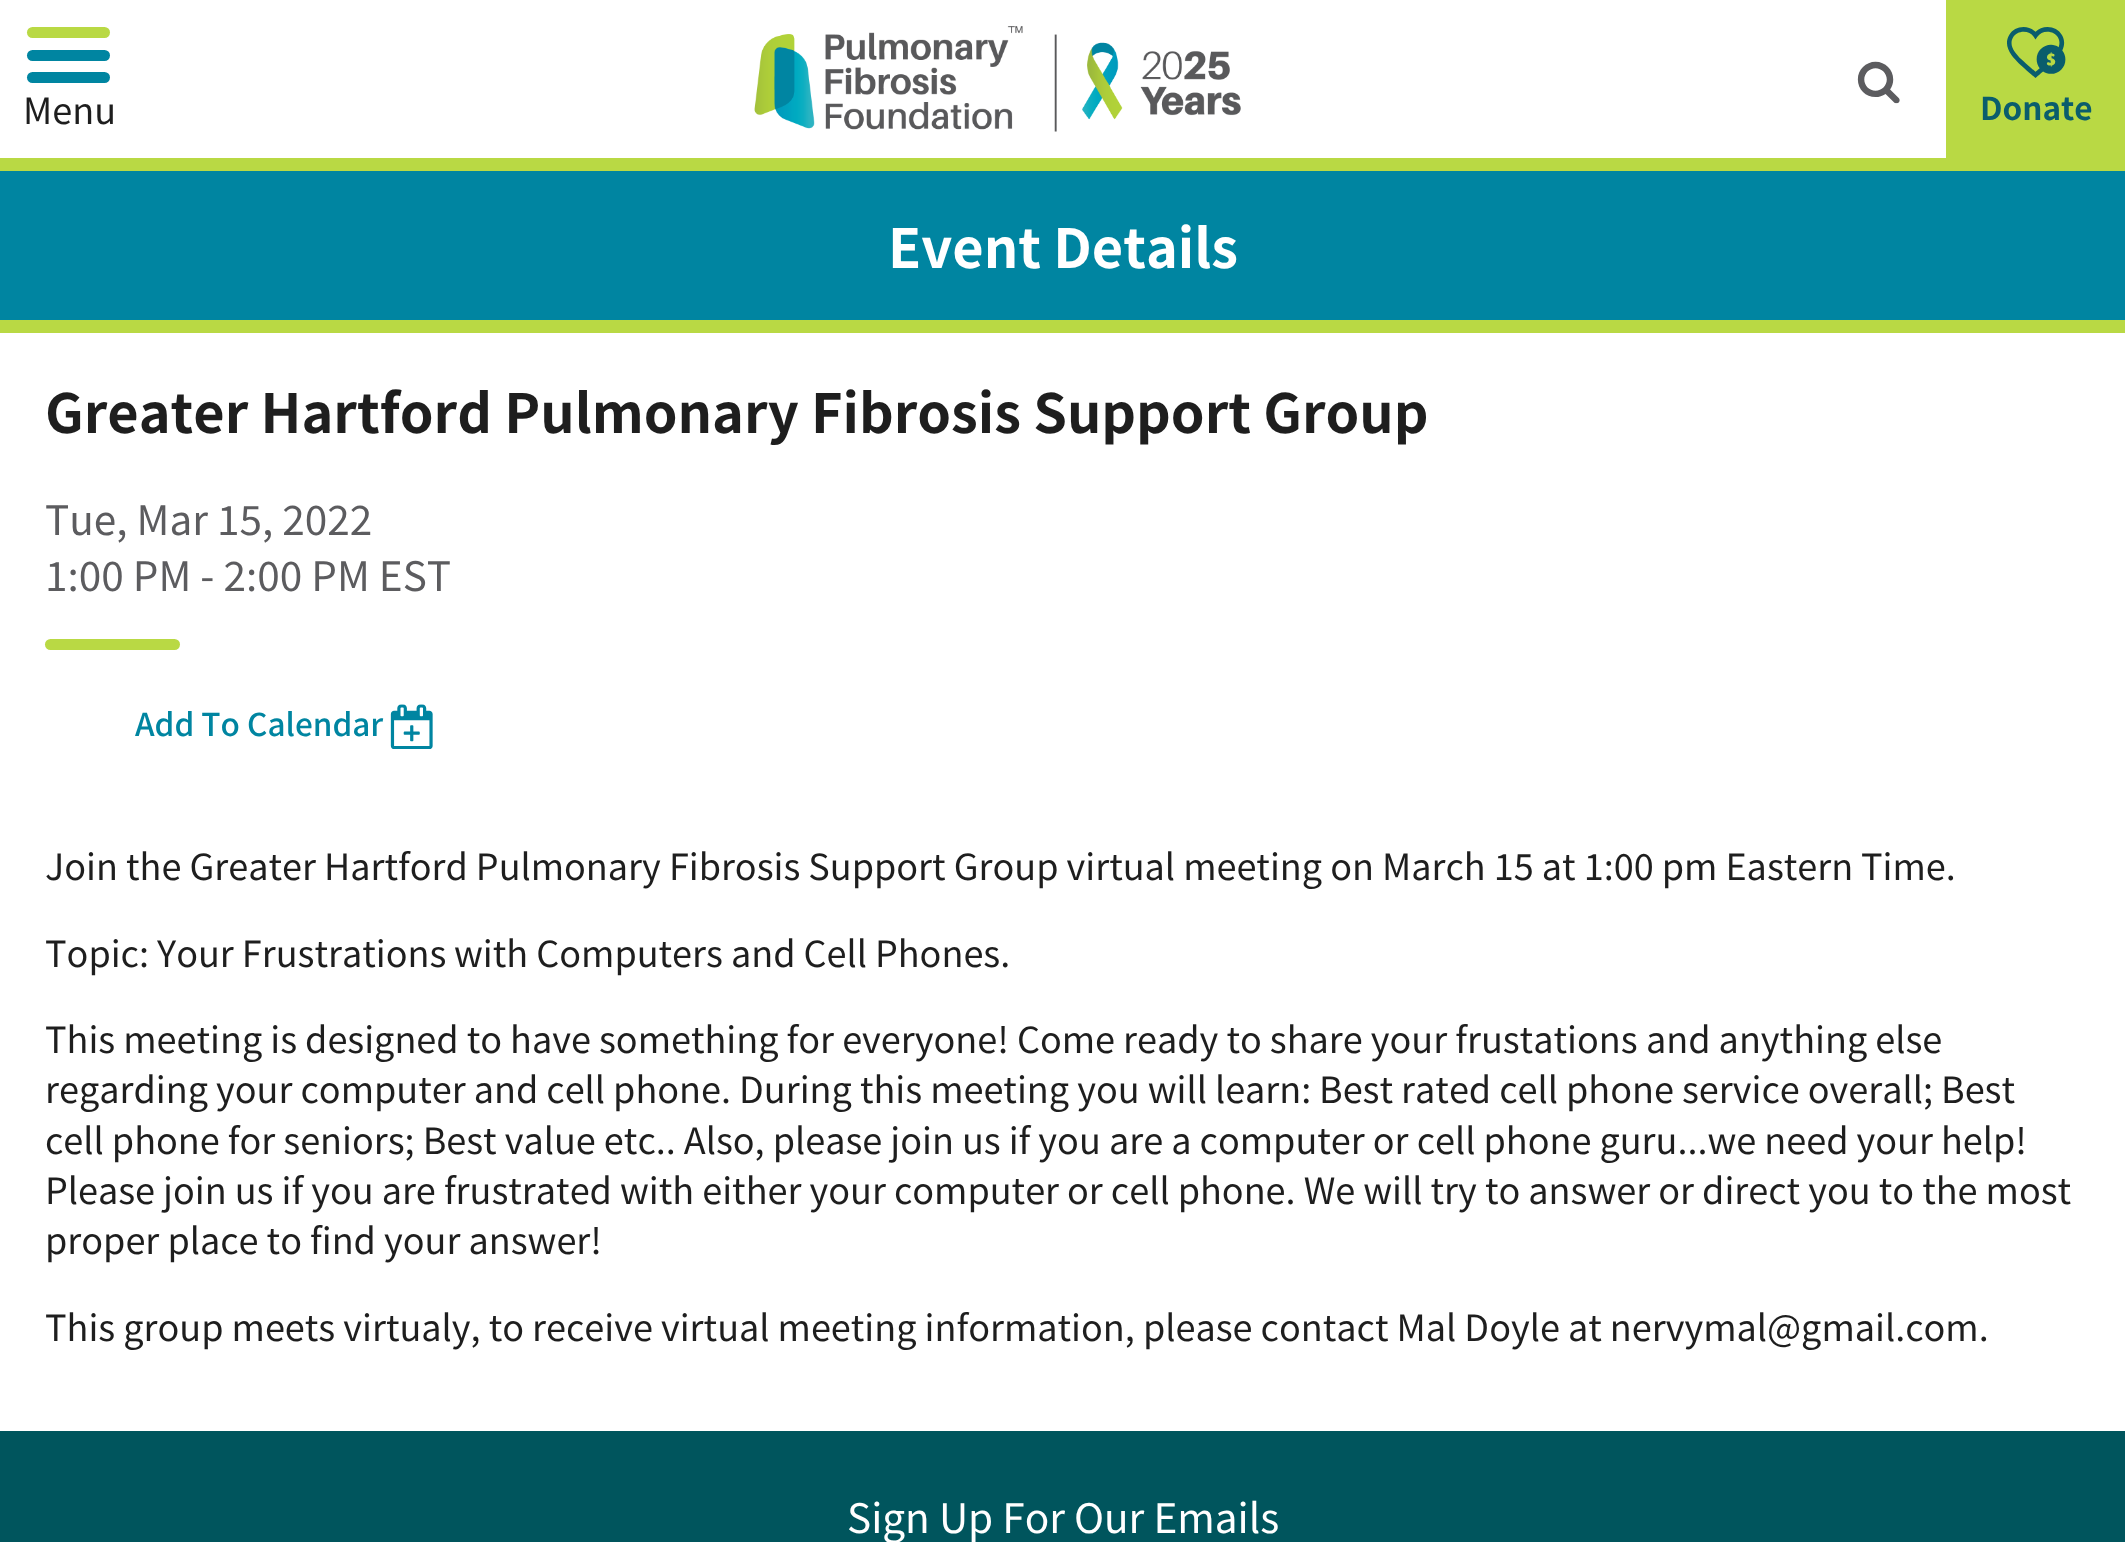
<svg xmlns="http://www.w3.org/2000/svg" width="2125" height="1542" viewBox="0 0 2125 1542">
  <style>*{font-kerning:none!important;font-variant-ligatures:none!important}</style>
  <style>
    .t1 { font: 36px Noto Sans JP; fill: #1e1e1e; }
    .t2 { font: bold 31.5px Noto Sans JP; fill: #0a5d6c; }
    .t3 { font: bold 54px Noto Sans JP; fill: #fff; }
    .t4 { font: bold 54px Noto Sans JP; fill: #1e1e1e; }
    .t5 { font: 40.5px Noto Sans JP; fill: #5c5c5f; }
    .t6 { font: 500 31.5px Noto Sans JP; fill: #0085a1; }
    .t7 { font: 40.5px Noto Sans JP; fill: #fff; }
  </style>
  <rect width="100%" height="100%" fill="#fff"/>
  <rect x="0" y="158" width="2125" height="13" fill="#b9d944"/>
  <rect x="27" y="72" width="83" height="11" rx="5.5" fill="#0085a1"/>
  <rect x="27" y="27" width="83" height="11" rx="5.5" fill="#b9d944"/>
  <rect x="27" y="50" width="83" height="11" rx="5.5" fill="#0085a1"/>
  <text x="23" y="124" class="t1">Menu</text>
  <image x="754" y="26" width="487" height="106" href="images/1.png"/>
  <image x="1857" y="61" width="43" height="43" href="images/2.png"/>
  <rect x="1946" y="0" width="179" height="158" fill="#b9d944"/>
  <image x="2007" y="27" width="59" height="51" href="images/3.png"/>
  <text x="1980" y="120" class="t2">Donate</text>
  <rect x="0" y="171" width="2125" height="149" fill="#0085a1"/>
  <rect x="0" y="320" width="2125" height="13" fill="#b9d944"/>
  <text x="888" y="268" class="t3">Event Details</text>
  <text x="45" y="433" class="t4">Greater Hartford Pulmonary Fibrosis Support Group</text>
  <text x="45" y="535" class="t5">Tue, Mar 15, 2022</text>
  <text x="45" y="591" class="t5">1:00 PM - 2:00 PM EST</text>
  <rect x="45" y="639" width="135" height="11" rx="5.5" fill="#b9d944"/>
  <text x="135" y="736" class="t6">Add To Calendar</text>
  <image x="390" y="704" width="43" height="45" href="images/4.png"/>
  <text x="45" y="880" class="t1">Join the Greater Hartford Pulmonary Fibrosis Support Group virtual meeting on March 15 at 1:00 pm Eastern</text>
  <text x="1861" y="880" class="t1">Time.</text>
  <text x="45" y="967" class="t1">Topic: Your Frustrations</text>
  <text x="454" y="967" class="t1">with Computers and Cell Phones.</text>
  <text x="45" y="1053" class="t1">This meeting is designed to have something for everyone! Come ready to share your frustations</text>
  <text x="1646" y="1053" class="t1">and anything else</text>
  <text x="45" y="1103" class="t1">regarding your computer and cell phone. During this meeting you will learn:</text>
  <text x="1319" y="1103" class="t1">Best rated cell phone service overall;</text>
  <text x="1941" y="1103" class="t1">Best</text>
  <text x="45" y="1154" class="t1">cell phone for seniors; Best value etc.. Also, please join us if you</text>
  <text x="1109" y="1154" class="t1">are a computer or cell phone guru...we need your help!</text>
  <text x="45" y="1204" class="t1">Please join us if you are frustrated with either your computer</text>
  <text x="1067" y="1204" class="t1">or cell phone. We will try to answer or direct you to the most</text>
  <text x="45" y="1254" class="t1">proper place to find your answer!</text>
  <text x="45" y="1341" class="t1">This group meets virtualy, to receive virtual meeting information,</text>
  <text x="1143" y="1341" class="t1">please contact Mal Doyle at nervymal@gmail.com.</text>
  <rect x="0" y="1431" width="2125" height="111" fill="#00555d"/>
  <text x="847" y="1533" class="t7">Sign Up For Our Emails</text>
</svg>
